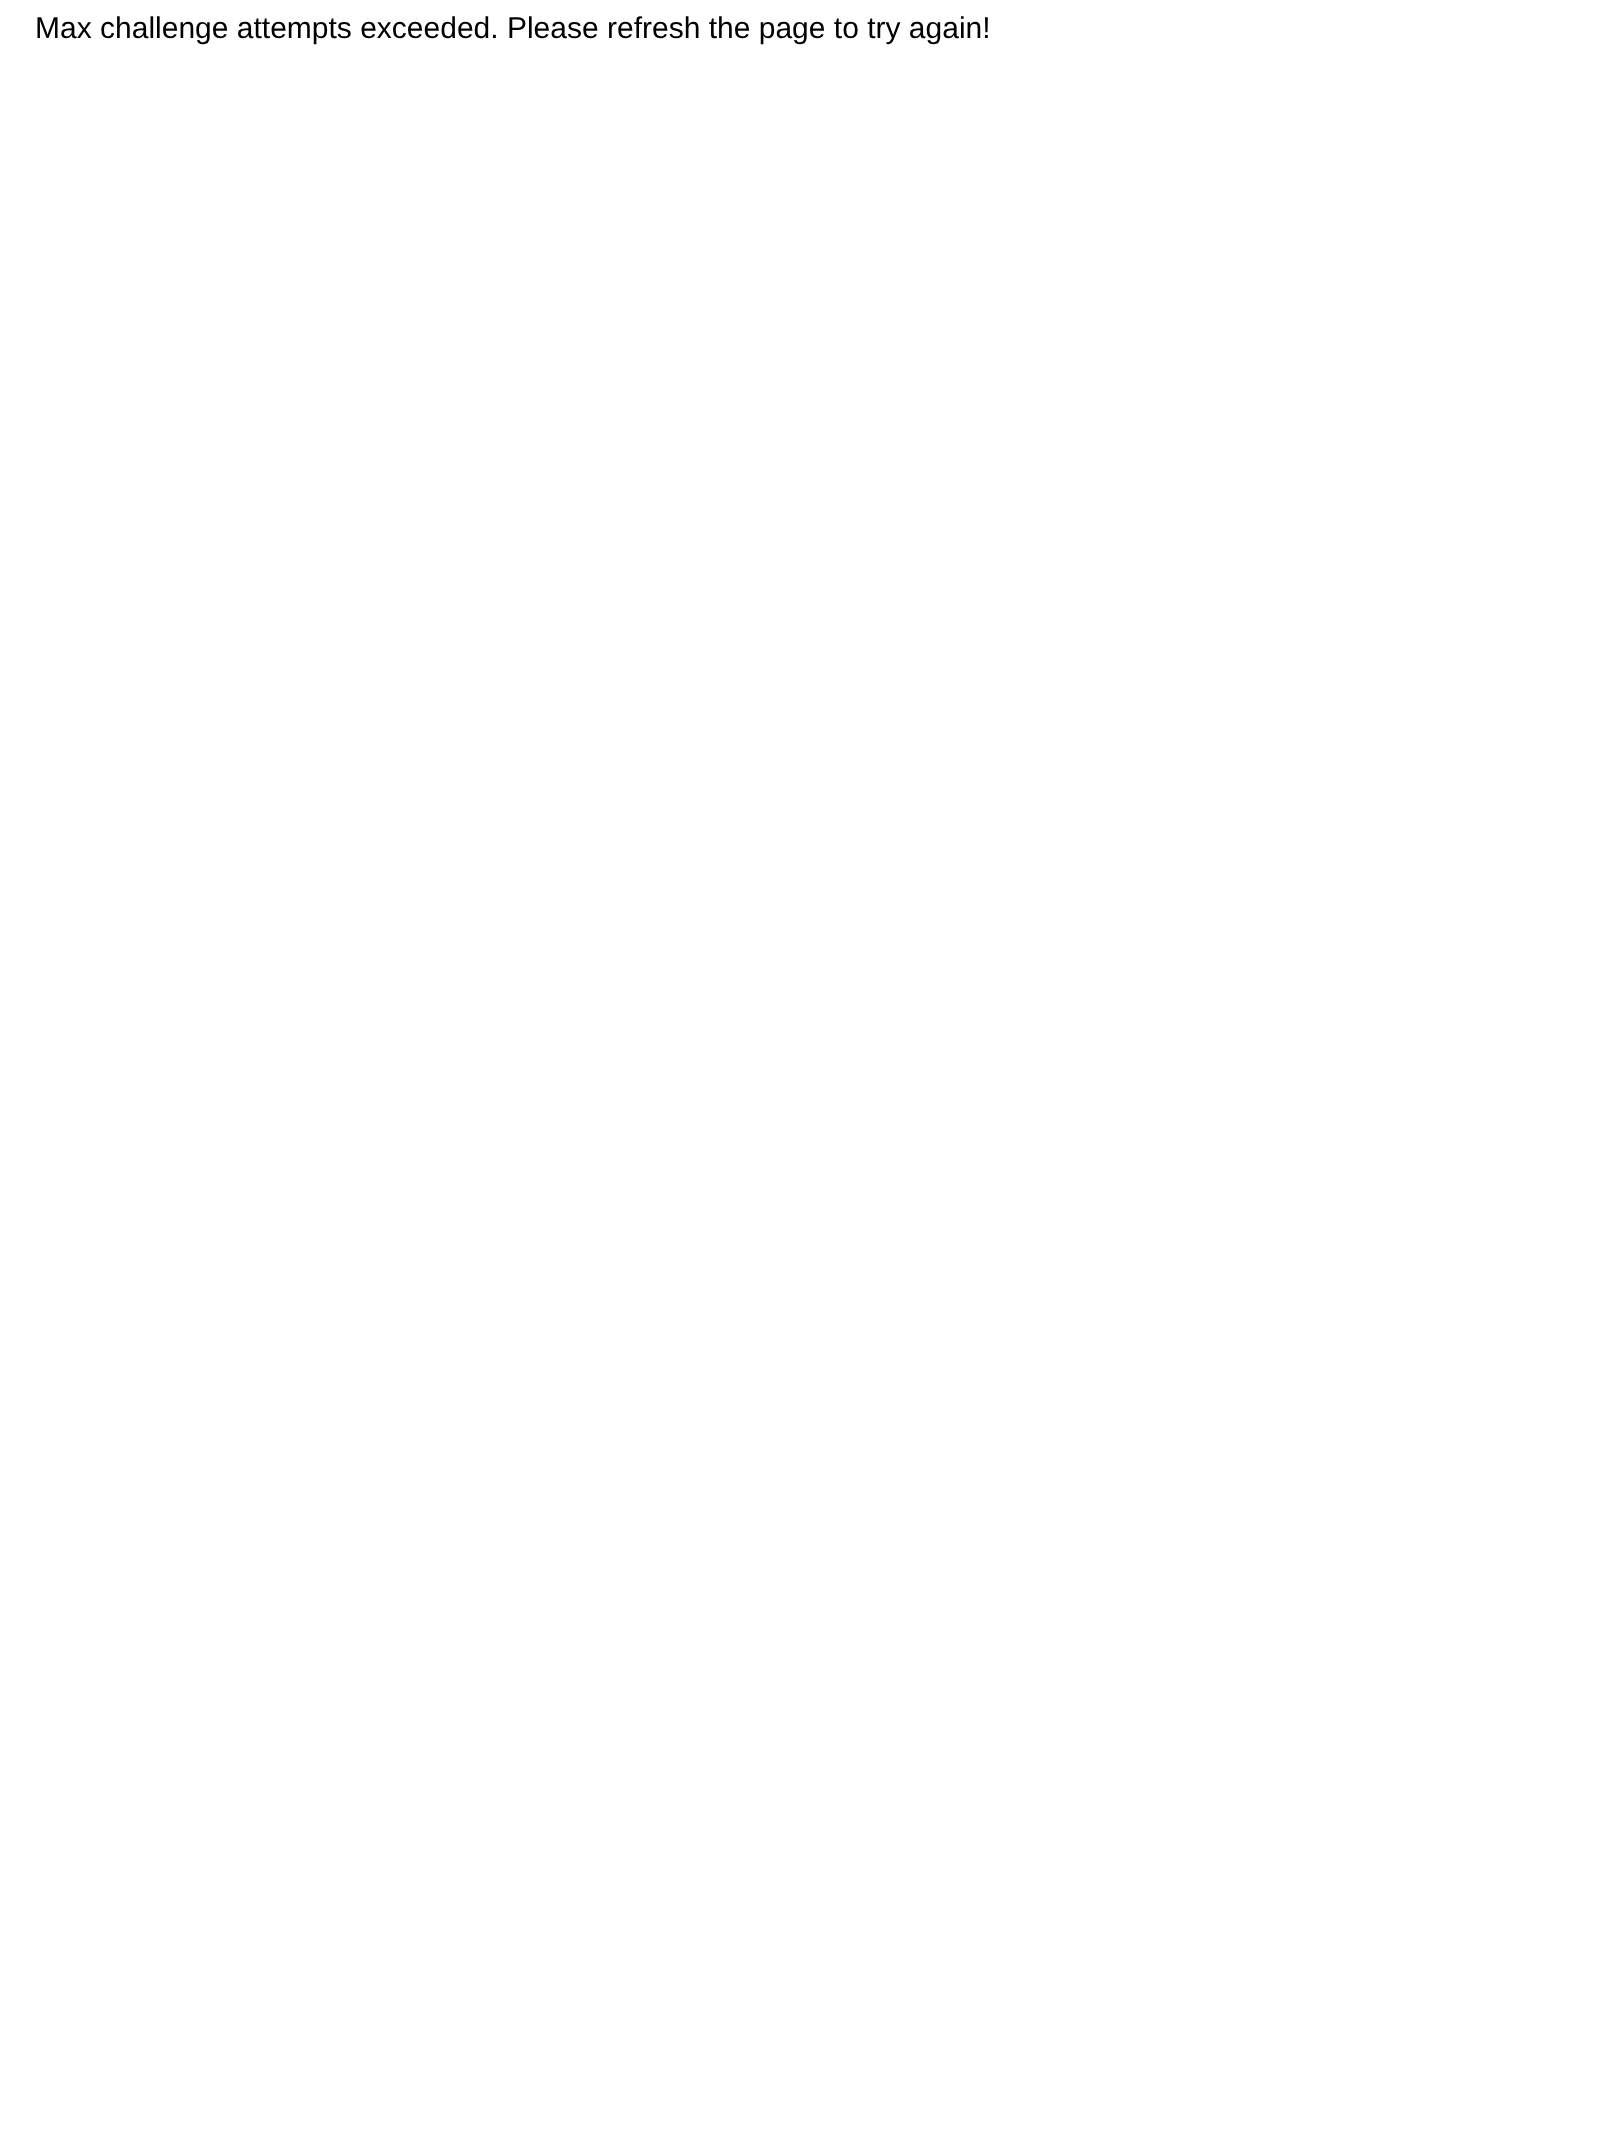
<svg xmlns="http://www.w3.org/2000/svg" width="1616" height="2136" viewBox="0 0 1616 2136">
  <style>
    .t1 { font: 30px Liberation Sans; fill: #000; }
  </style>
  <rect width="100%" height="100%" fill="#fff"/>
  <text x="35" y="38" class="t1">Max challenge attempts exceeded. Please refresh the page to try again!</text>
</svg>
